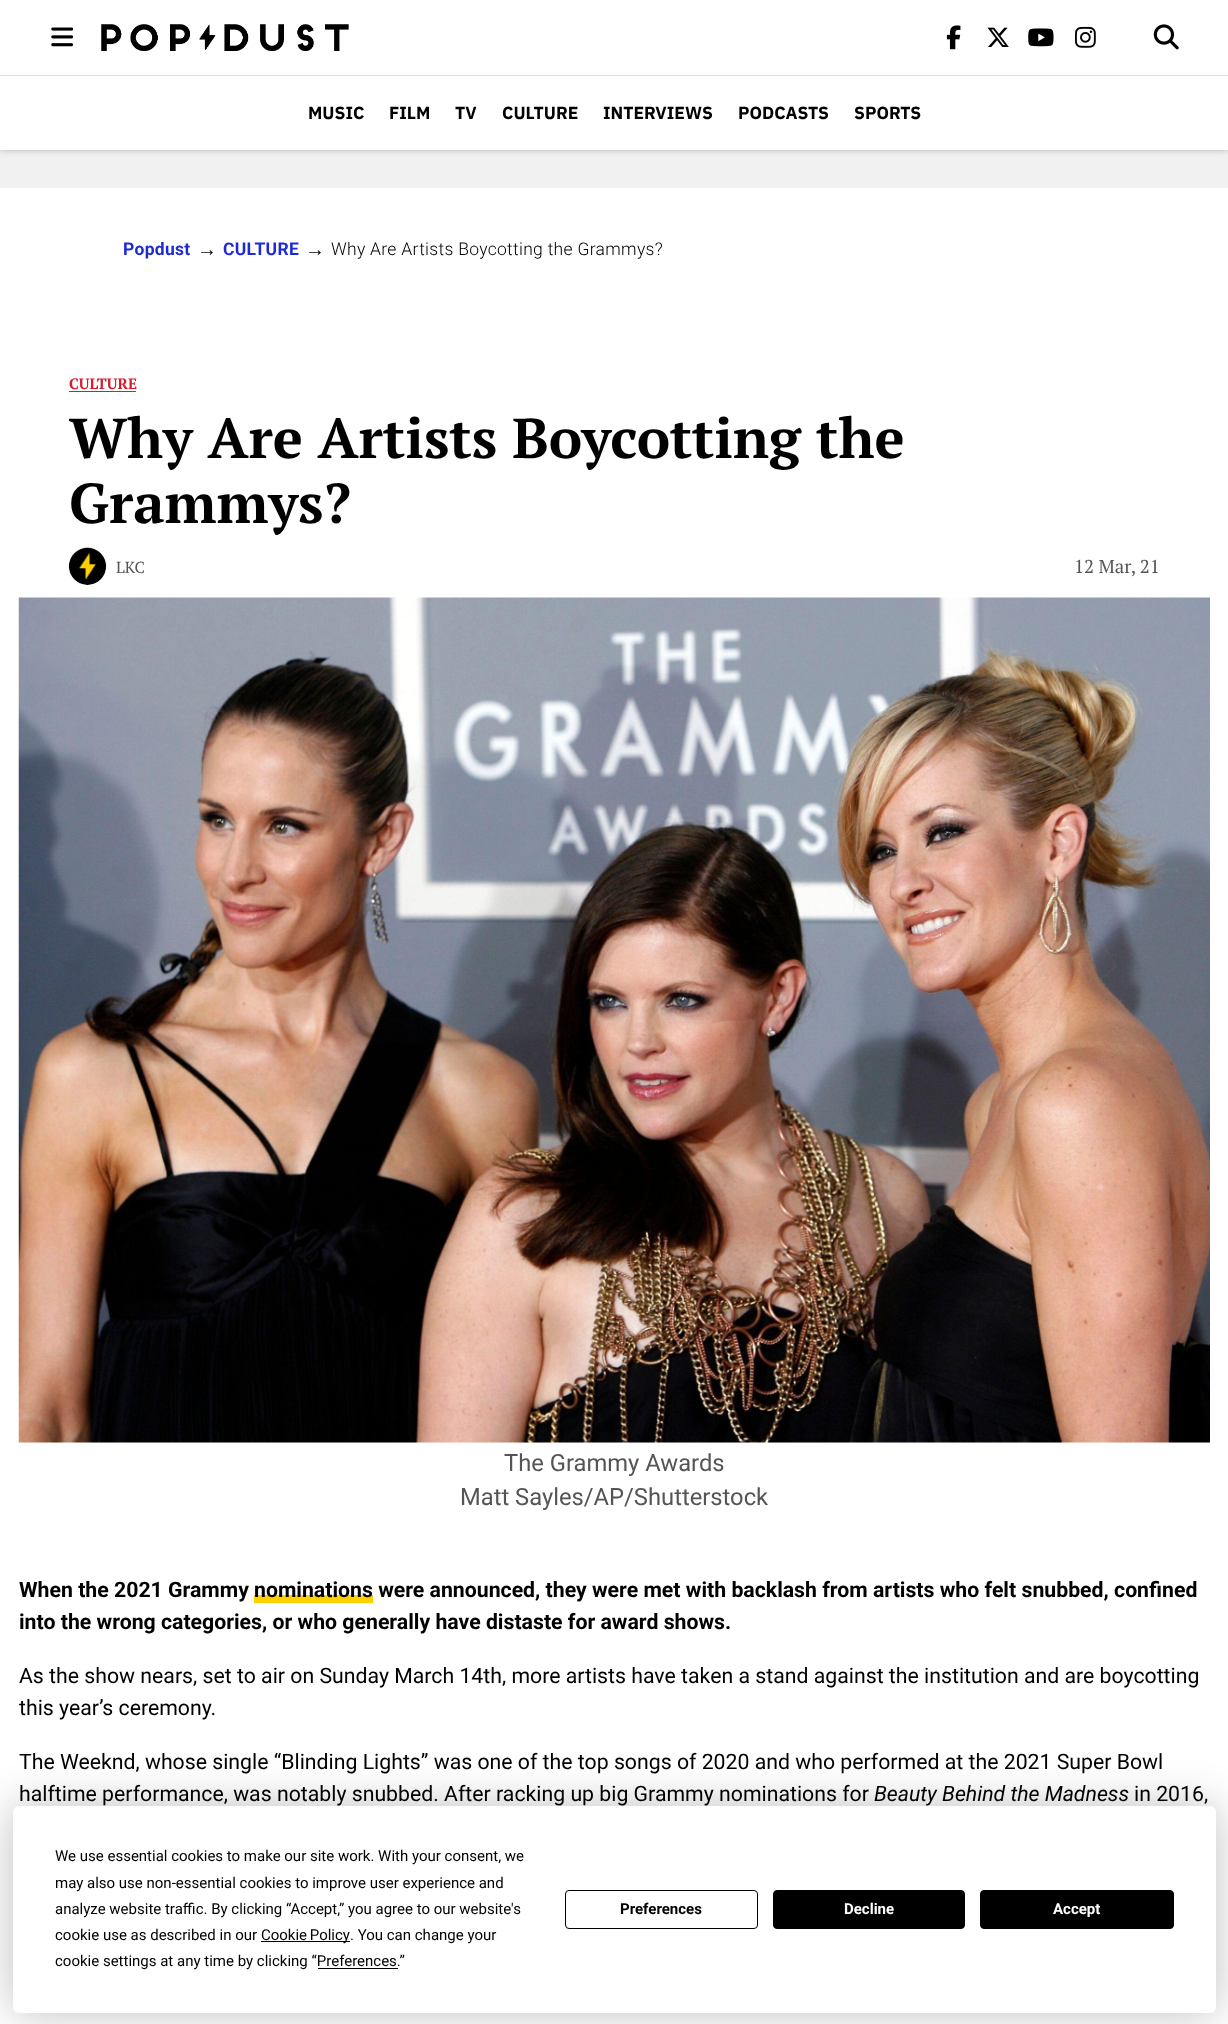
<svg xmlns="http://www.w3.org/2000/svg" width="1228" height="2024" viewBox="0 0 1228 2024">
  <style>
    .t1 { font: bold 17.5px IBM Plex Sans; fill: #000; }
    .t2 { font: bold 17.5px Roboto; letter-spacing: 0.3px; fill: #1e2bd2; }
    .t3 { font: 20px Liberation Sans; fill: #000; }
    .t4 { font: 300 17.5px Roboto; letter-spacing: 0.3px; fill: #000; }
    .t5 { font: bold 15px PT Serif; fill: #d41c2c; }
    .t6 { font: bold 56.25px PT Serif; fill: #000; }
    .t7 { font: 16px PT Serif; fill: #555; }
    .t8 { font: 18.75px PT Serif; fill: #555; }
    .t9 { font: 23.75px Roboto; fill: #555; }
    .t10 { font: bold 21.25px Roboto; fill: #000; }
    .t11 { font: 21.25px Roboto; fill: #000; }
    .t12 { font: italic 21.25px Roboto; fill: #000; }
    .t13 { font: 15px Roboto; fill: #000; }
    .t14 { font: bold 15px Roboto; fill: #000; }
    .t15 { font: bold 15px Roboto; fill: #fff; }
  </style>
  <rect width="100%" height="100%" fill="#f1f1f1"/>
  <rect x="0" y="0" width="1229" height="150" fill="#00000040" filter="blur(3px)"/>
  <rect x="0" y="0" width="1228" height="150" fill="#fff"/>
  <image x="51" y="27" width="23" height="20" href="images/1.png"/>
  <image x="101" y="24" width="248" height="27" href="images/2.png"/>
  <image x="946" y="25" width="15" height="25" href="images/3.png"/>
  <image x="987" y="27" width="22" height="20" href="images/4.png"/>
  <image x="1028" y="28" width="26" height="19" href="images/5.png"/>
  <image x="1075" y="26" width="21" height="22" href="images/6.png"/>
  <image x="1153" y="24" width="26" height="26" href="images/7.png"/>
  <rect x="0" y="75" width="1228" height="1" fill="#ddd"/>
  <text x="308" y="119" class="t1">MUSIC</text>
  <text x="389" y="119" class="t1">FILM</text>
  <text x="455" y="119" class="t1">TV</text>
  <text x="502" y="119" class="t1">CULTURE</text>
  <text x="603" y="119" class="t1">INTERVIEWS</text>
  <text x="738" y="119" class="t1">PODCASTS</text>
  <text x="854" y="119" class="t1">SPORTS</text>
  <rect x="0" y="188" width="1228" height="1836" fill="#fff"/>
  <text x="123" y="255" class="t2">Popdust</text>
  <text x="197" y="256" class="t3">→</text>
  <text x="223" y="255" class="t2">CULTURE</text>
  <text x="305" y="256" class="t3">→</text>
  <text x="331" y="255" class="t4">Why Are Artists Boycotting the Grammys?</text>
  <text x="69" y="389" class="t5">CULTURE</text>
  <rect x="69" y="391" width="67" height="1" fill="#d41c2c"/>
  <text x="69" y="458" class="t6">Why Are Artists Boycotting the</text>
  <text x="69" y="523" class="t6">Grammys?</text>
  <image x="68" y="547" width="39" height="38" href="images/8.png"/>
  <text x="116" y="573" class="t7">LKC</text>
  <text x="1074" y="573" class="t8">12 Mar, 21</text>
  <image x="18" y="597" width="1192" height="846" href="images/9.png"/>
  <text x="504" y="1471" class="t9">The Grammy Awards</text>
  <text x="460" y="1505" class="t9">Matt Sayles/AP/Shutterstock</text>
  <text x="19" y="1597" class="t10">When the 2021 Grammy</text>
  <rect x="254" y="1595" width="119" height="8" fill="#fdd000"/>
  <text x="254" y="1597" class="t10">nominations were announced, they were met with backlash from artists who felt snubbed, confined</text>
  <text x="19" y="1629" class="t10">into the wrong categories, or who generally have distaste for award shows.</text>
  <text x="19" y="1683" class="t11">As the show nears, set to air on Sunday March 14th, more artists have taken a stand against the institution and are boycotting</text>
  <text x="19" y="1715" class="t11">this year’s ceremony.</text>
  <text x="19" y="1769" class="t11">The Weeknd, whose single “Blinding Lights” was one of the top songs of 2020 and who performed at the 2021 Super Bowl</text>
  <text x="19" y="1801" class="t11">halftime performance, was notably snubbed. After racking up big Grammy nominations for</text>
  <text x="874" y="1801" class="t12">Beauty Behind the Madness</text>
  <text x="1134" y="1801" class="t11">in 2016,</text>
  <rect x="13" y="1806" width="1203" height="207" rx="6" fill="#00000040" filter="blur(22px)"/>
  <rect x="13" y="1806" width="1203" height="207" rx="6" fill="#fff"/>
  <text x="55" y="1861" class="t13">We use essential cookies to make our site work. With your consent, we</text>
  <text x="55" y="1888" class="t13">may also use non-essential cookies to improve user experience and</text>
  <text x="55" y="1914" class="t13">analyze website traffic. By clicking “Accept,” you agree to our website's</text>
  <text x="55" y="1940" class="t13">cookie use as described in our</text>
  <rect x="261" y="1941" width="89" height="1" fill="#000"/>
  <text x="261" y="1940" word-spacing="-1" class="t13">Cookie Policy</text>
  <text x="350" y="1940" class="t13">. You can change your</text>
  <text x="55" y="1966" class="t13">cookie settings at any time by clicking “Preferences.”</text>
  <rect x="318" y="1968" width="80" height="1" fill="#000"/>
  <rect x="565.5" y="1890.5" width="192" height="38" rx="3.5" fill="none" stroke="#000"/>
  <text x="620" y="1914" class="t14">Preferences</text>
  <rect x="773.5" y="1890.5" width="191" height="38" rx="3.5" fill="#000" stroke="#000"/>
  <text x="844" y="1914" class="t15">Decline</text>
  <rect x="980.5" y="1890.5" width="193" height="38" rx="3.5" fill="#000" stroke="#000"/>
  <text x="1053" y="1914" class="t15">Accept</text>
</svg>
